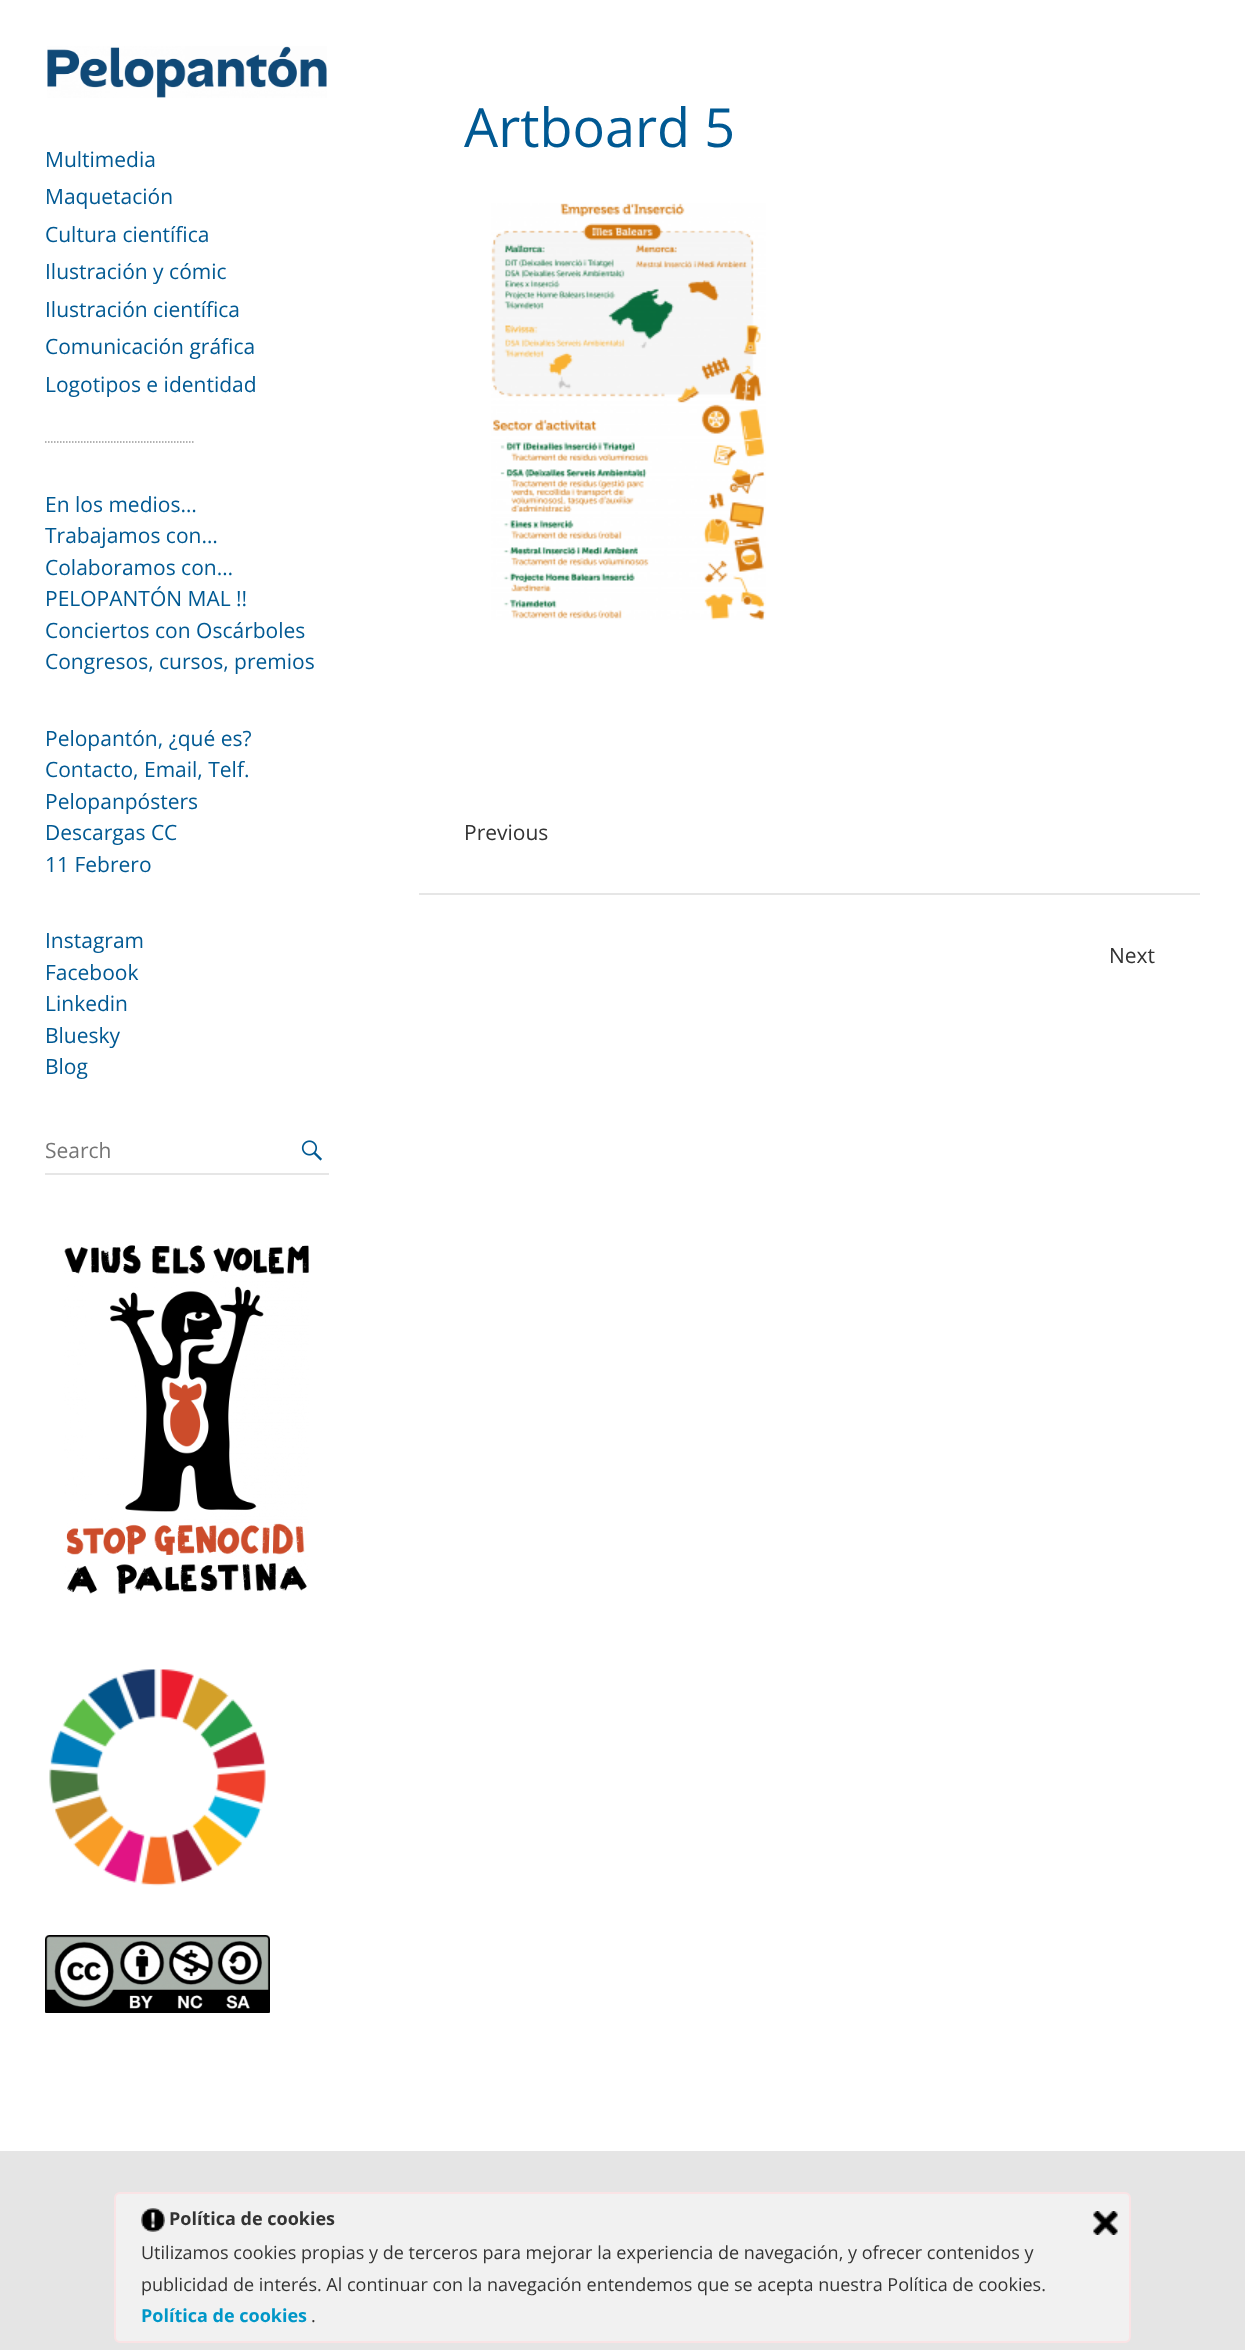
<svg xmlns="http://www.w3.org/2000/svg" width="1245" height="2350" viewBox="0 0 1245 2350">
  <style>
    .t1 { font: 21px Open Sans; fill: #005993; }
    .t2 { font: 54px Open Sans; fill: #005993; }
    .t3 { font: 21px Open Sans; fill: #333; }
    .t4 { font: 21px Open Sans; fill: #757575; }
    .t5 { font: bold 18px Open Sans; fill: #333; }
    .t6 { font: 18px Open Sans; fill: #333; }
    .t7 { font: bold 18px Open Sans; fill: #0097c8; }
  </style>
  <rect width="100%" height="100%" fill="#e5e5e5"/>
  <rect x="0" y="0" width="1245" height="2151" fill="#fff"/>
  <image x="47" y="46" width="280" height="52" href="images/1.png"/>
  <text x="45" y="167" class="t1">Multimedia</text>
  <text x="45" y="204" class="t1">Maquetación</text>
  <text x="45" y="242" class="t1">Cultura científica</text>
  <text x="45" y="279" class="t1">Ilustración y cómic</text>
  <text x="45" y="317" class="t1">Ilustración científica</text>
  <text x="45" y="354" class="t1">Comunicación gráfica</text>
  <text x="45" y="392" class="t1">Logotipos e identidad</text>
  <path d="M45 442H195" fill="none" stroke="#999" stroke-width="1.5" stroke-dasharray="1.5 1.5"/>
  <text x="464" y="147" class="t2">Artboard 5</text>
  <image x="491" y="203" width="275" height="417" href="images/2.png"/>
  <rect x="419" y="893" width="781" height="2" fill="#e6e6e6"/>
  <text x="464" y="840" class="t3">Previous</text>
  <text x="1109" y="963" class="t3">Next</text>
  <text x="45" y="512" class="t1">En los medios…</text>
  <text x="45" y="543" class="t1">Trabajamos con…</text>
  <text x="45" y="575" class="t1">Colaboramos con…</text>
  <text x="45" y="606" class="t1">PELOPANTÓN MAL !!</text>
  <text x="45" y="638" class="t1">Conciertos con Oscárboles</text>
  <text x="45" y="669" class="t1">Congresos, cursos, premios</text>
  <text x="45" y="746" class="t1">Pelopantón, ¿qué es?</text>
  <text x="45" y="777" class="t1">Contacto, Email, Telf.</text>
  <text x="45" y="809" class="t1">Pelopanpósters</text>
  <text x="45" y="840" class="t1">Descargas CC</text>
  <text x="45" y="872" class="t1">11 Febrero</text>
  <text x="45" y="948" class="t1">Instagram</text>
  <text x="45" y="980" class="t1">Facebook</text>
  <text x="45" y="1011" class="t1">Linkedin</text>
  <text x="45" y="1043" class="t1">Bluesky</text>
  <text x="45" y="1074" class="t1">Blog</text>
  <rect x="45" y="1173" width="284" height="2" fill="#e6e6e6"/>
  <text x="45" y="1158" class="t4">Search</text>
  <image x="301" y="1140" width="21" height="21" href="images/3.png"/>
  <image x="64" y="1245" width="245" height="349" href="images/4.png"/>
  <image x="49" y="1669" width="217" height="217" href="images/5.png"/>
  <image x="45" y="1935" width="225" height="78" href="images/6.png"/>
  <rect x="115" y="2193" width="1015" height="149" rx="5" fill="#f1f1f1" stroke="#fae3e5" stroke-width="2"/>
  <image x="141" y="2208" width="24" height="24" href="images/7.png"/>
  <text x="169" y="2225" class="t5">Política de cookies</text>
  <image x="1093" y="2211" width="25" height="24" href="images/8.png"/>
  <text x="141" y="2259" class="t6">Utilizamos cookies propias y de terceros para mejorar la experiencia de navegación, y ofrecer contenidos y</text>
  <text x="141" y="2291" class="t6">publicidad de interés. Al continuar con la navegación entendemos que se acepta nuestra Política de cookies.</text>
  <text x="141" y="2322" class="t7">Política de cookies</text>
  <text x="311" y="2322" class="t6">.</text>
</svg>
